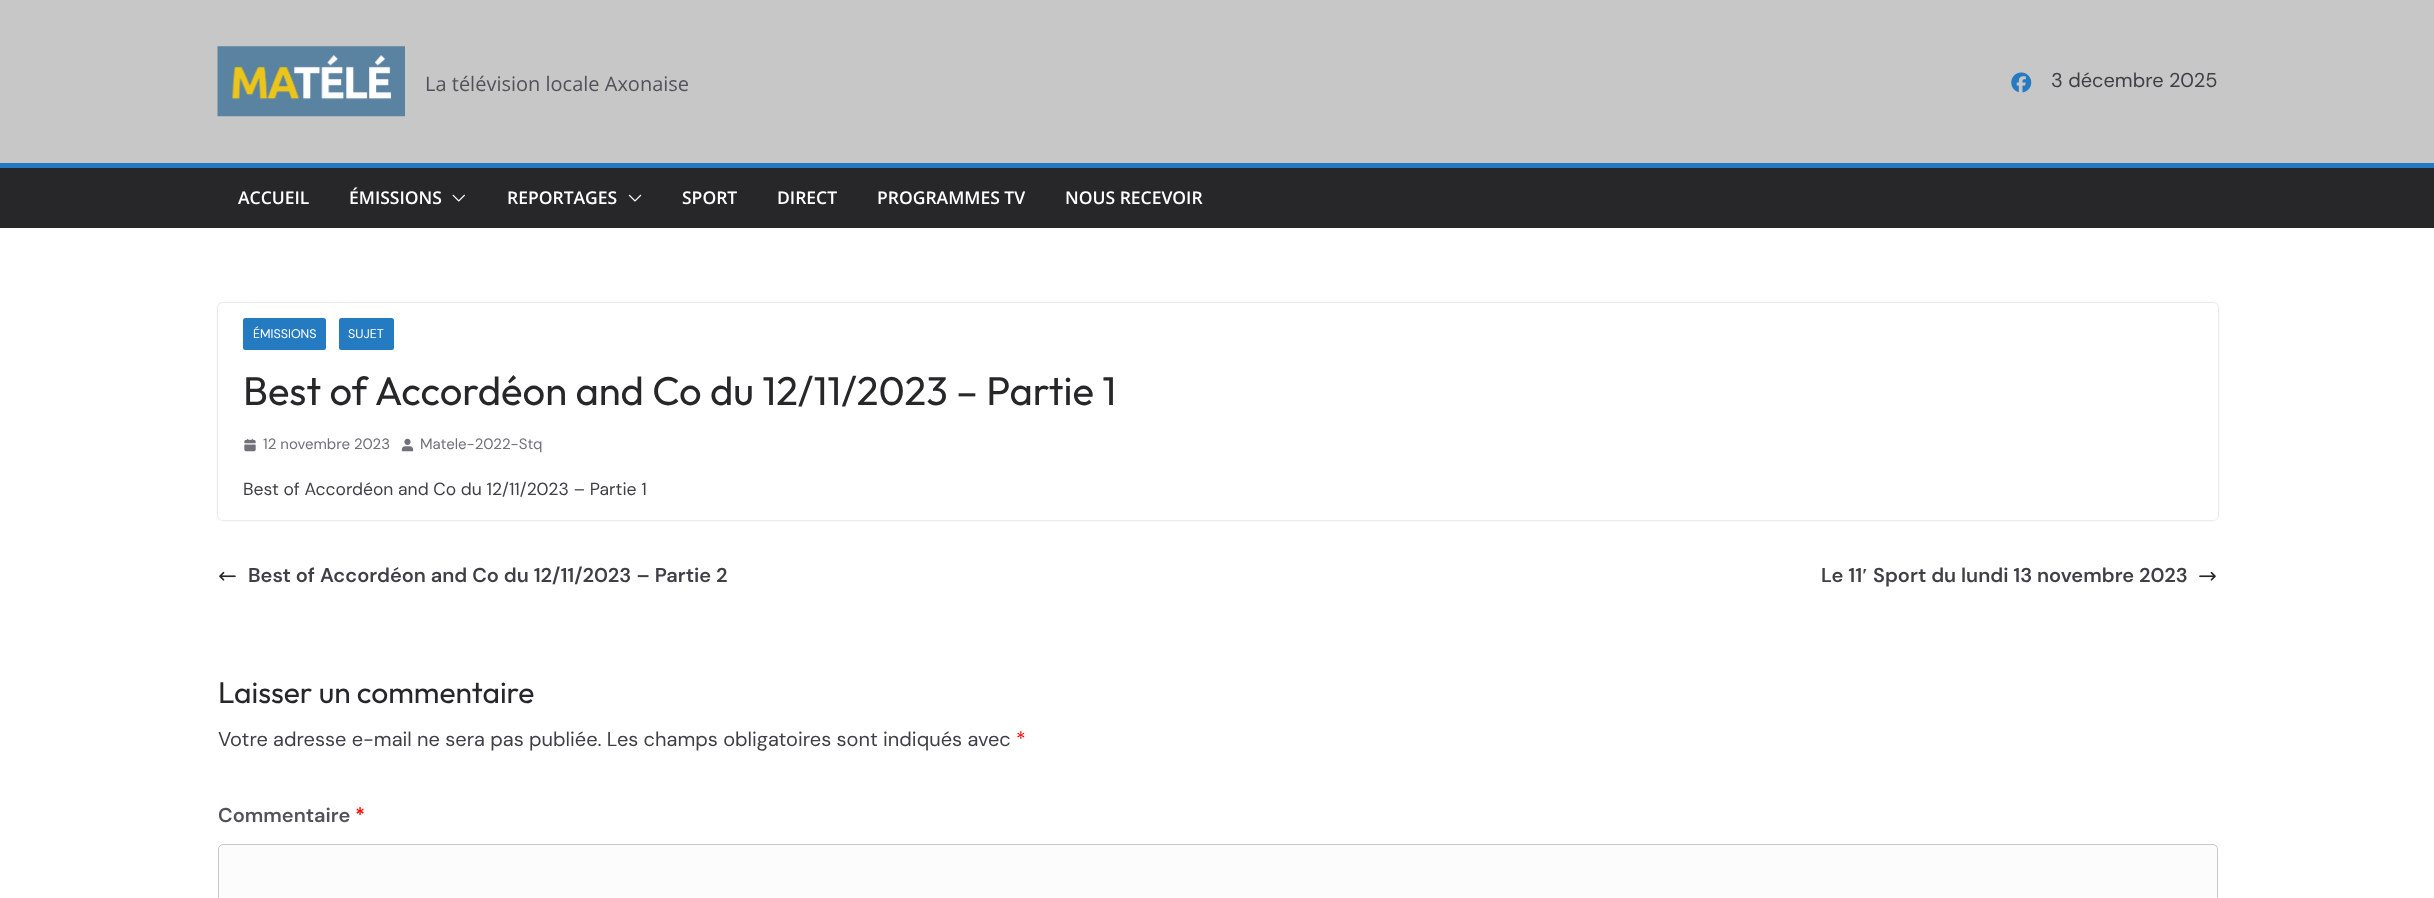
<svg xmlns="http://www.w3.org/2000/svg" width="2434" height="898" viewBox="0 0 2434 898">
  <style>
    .t1 { font: 20px Open Sans; fill: #52525b; }
    .t2 { font: 20px DM Sans; fill: #3f3f46; }
    .t3 { font: 600 17.5px Open Sans; fill: #fff; }
    .t4 { font: 12.5px DM Sans; fill: #fff; }
    .t5 { font: 100 40px Outfit; fill: #27272a; }
    .t6 { font: 15px DM Sans; fill: #71717a; }
    .t7 { font: 17.5px DM Sans; fill: #3f3f46; }
    .t8 { font: 600 20px DM Sans; fill: #3f3f46; }
    .t9 { font: bold 20px Liberation Serif; fill: #3f3f46; }
    .t10 { font: 100 30px Outfit; fill: #27272a; }
    .t11 { font: 20px DM Sans; fill: #f00; }
    .t12 { font: 600 20px DM Sans; fill: #52525b; }
    .t13 { font: 600 20px DM Sans; fill: #f00; }
  </style>
  <defs>
    <clipPath id="clip1"><path d="M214 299H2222V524H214ZM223 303H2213C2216 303 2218 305 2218 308V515C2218 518 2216 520 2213 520H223C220 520 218 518 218 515V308C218 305 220 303 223 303Z" clip-rule="evenodd"/></clipPath>
  </defs>
  <rect width="100%" height="100%" fill="#fff"/>
  <rect x="0" y="0" width="2434" height="163" fill="#c7c7c7"/>
  <image x="217" y="46" width="188" height="71" href="images/1.png"/>
  <text x="425" y="91" class="t1">La télévision locale Axonaise</text>
  <image x="2011" y="72" width="21" height="21" href="images/2.png"/>
  <text x="2051" y="87" class="t2">3 décembre 2025</text>
  <rect x="0" y="168" width="2434" height="60" fill="#27272a"/>
  <rect x="0" y="163" width="2434" height="5" fill="#257bc1"/>
  <text x="238" y="204" class="t3">ACCUEIL</text>
  <text x="349" y="204" class="t3">ÉMISSIONS</text>
  <image x="452" y="194" width="13" height="8" href="images/3.png"/>
  <text x="507" y="204" class="t3">REPORTAGES</text>
  <image x="628" y="194" width="14" height="8" href="images/4.png"/>
  <text x="682" y="204" class="t3">SPORT</text>
  <text x="777" y="204" class="t3">DIRECT</text>
  <text x="877" y="204" class="t3">PROGRAMMES TV</text>
  <text x="1065" y="204" class="t3">NOUS RECEVOIR</text>
  <g clip-path="url(#clip1)">
    <rect x="218" y="303" width="2000" height="217" rx="5" fill="#0000003d" filter="blur(1px)"/>
  </g>
  <rect x="243" y="318" width="83" height="32" rx="2.5" fill="#257bc1"/>
  <text x="253" y="338" class="t4">ÉMISSIONS</text>
  <rect x="339" y="318" width="55" height="32" rx="2.5" fill="#257bc1"/>
  <text x="348" y="338" class="t4">SUJET</text>
  <text x="243" y="405" class="t5">Best of Accordéon and Co du 12/11/2023 – Partie 1</text>
  <image x="244" y="438" width="12" height="14" href="images/5.png"/>
  <text x="263" y="449" class="t6">12 novembre 2023</text>
  <image x="401" y="438" width="13" height="14" href="images/6.png"/>
  <text x="420" y="449" class="t6">Matele-2022-Stq</text>
  <text x="243" y="495" class="t7">Best of Accordéon and Co du 12/11/2023 – Partie 1</text>
  <image x="219" y="571" width="17" height="10" href="images/7.png"/>
  <text x="248" y="582" class="t8">Best of Accordéon and Co du 12/11/2023 – Partie 2</text>
  <text x="1821" y="582" class="t8">Le 11</text>
  <text x="1862" y="582" class="t9">′</text>
  <text x="1873" y="582" class="t8">Sport du lundi 13 novembre 2023</text>
  <image x="2199" y="571" width="17" height="10" href="images/8.png"/>
  <text x="218" y="703" class="t10">Laisser un commentaire</text>
  <text x="218" y="746" class="t2">Votre adresse e-mail ne sera pas publiée. Les champs obligatoires sont indiqués avec</text>
  <text x="1016" y="746" class="t11">*</text>
  <text x="218" y="822" class="t12">Commentaire</text>
  <text x="355" y="822" class="t13">*</text>
  <rect x="218.5" y="844.5" width="1999" height="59" rx="4.5" fill="#fcfcfc" stroke="#c7c7c7"/>
</svg>
